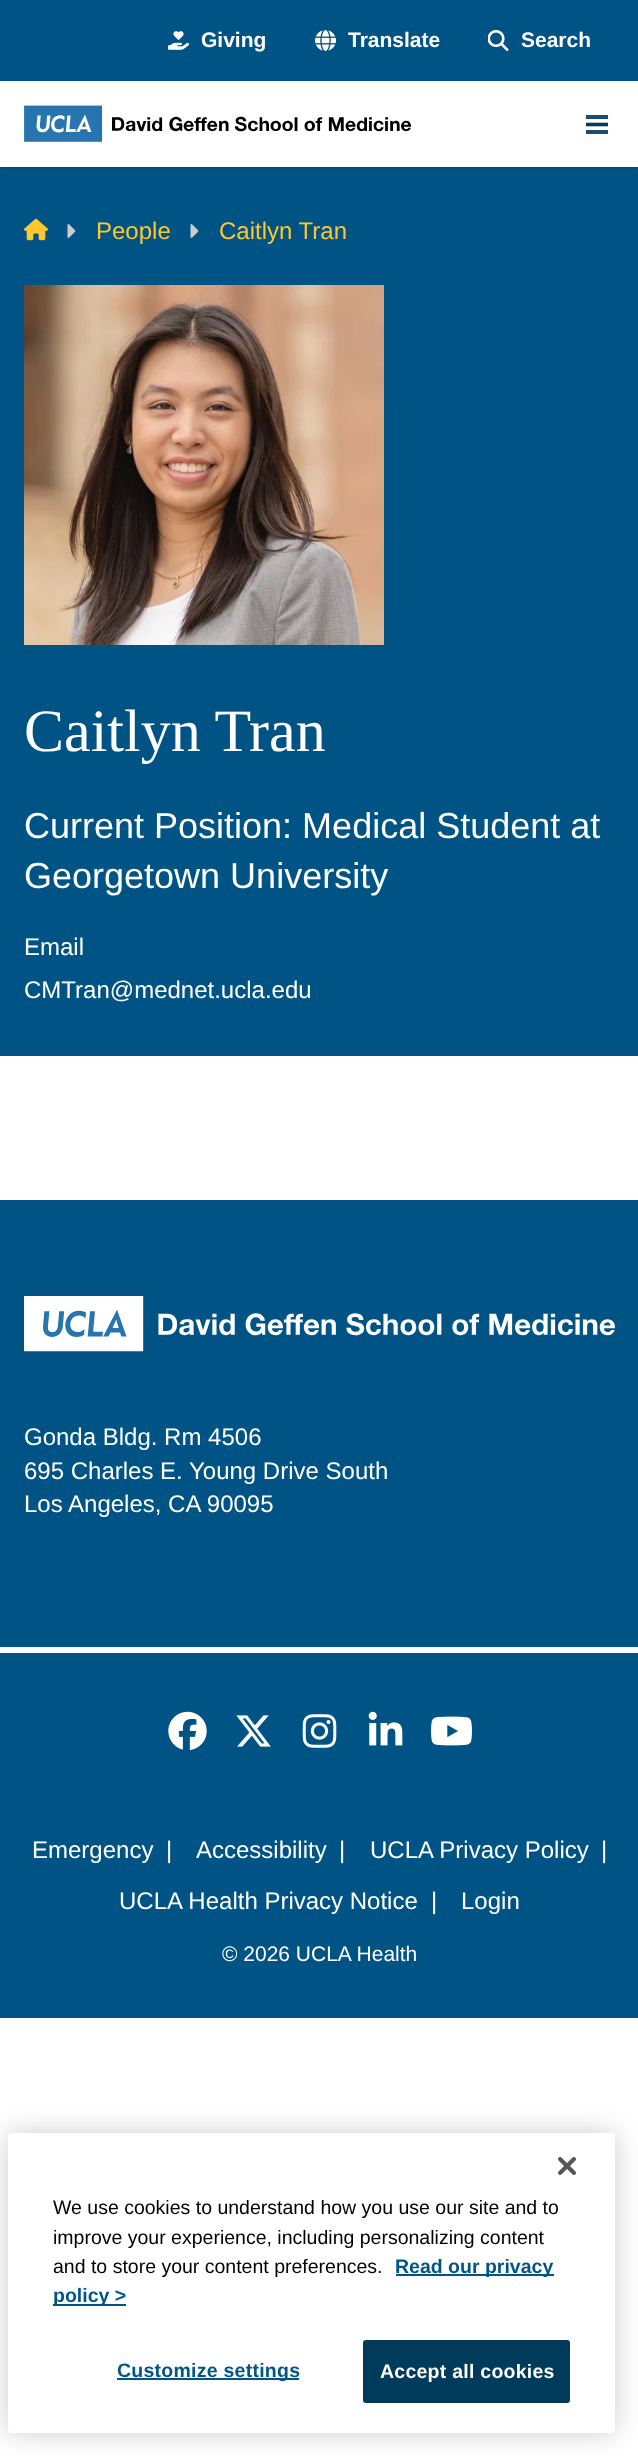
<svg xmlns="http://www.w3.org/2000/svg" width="638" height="2456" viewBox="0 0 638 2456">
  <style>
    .t1 { font: bold 21px Liberation Sans; fill: #fff; }
    .t2 { font: 24px Liberation Sans; fill: #ffc72e; }
    .t3 { font: 60px Liberation Serif; fill: #fff; }
    .t4 { font: 36px Liberation Sans; fill: #fff; }
    .t5 { font: 24px Liberation Sans; fill: #fff; }
    .t6 { font: 21px Liberation Sans; fill: #fff; }
    .t7 { font: 19.5px Liberation Sans; fill: #000; }
    .t8 { font: bold 19.5px Liberation Sans; fill: #005587; }
    .t9 { font: bold 19.5px Liberation Sans; letter-spacing: 0.25px; fill: #005587; }
    .t10 { font: bold 19.5px Liberation Sans; letter-spacing: 0.25px; fill: #fff; }
  </style>
  <rect width="100%" height="100%" fill="#fff"/>
  <rect x="0" y="167" width="638" height="889" fill="#005485"/>
  <rect x="2" y="3" width="636" height="164" fill="#0000001a" filter="blur(1.5px)"/>
  <rect x="0" y="2" width="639" height="166" fill="#0000001a" filter="blur(2px)"/>
  <rect x="0" y="81" width="638" height="86" fill="#fff"/>
  <rect x="0" y="0" width="638" height="81" fill="#005485"/>
  <image x="168" y="31" width="21" height="19" href="images/1.png"/>
  <text x="201" y="47" class="t1">Giving</text>
  <image x="315" y="30" width="21" height="21" href="images/2.png"/>
  <text x="348" y="47" class="t1">Translate</text>
  <image x="488" y="30" width="21" height="21" href="images/3.png"/>
  <text x="521" y="47" class="t1">Search</text>
  <image x="24" y="105" width="388" height="37" href="images/4.png"/>
  <rect x="586" y="115" width="22" height="4" fill="#1a4e6c"/>
  <path d="M586 124.5H608" fill="none" stroke="#003a5c" stroke-width="3.6"/>
  <rect x="586" y="130" width="22" height="4" fill="#1a4e6c"/>
  <image x="24" y="218" width="24" height="23" href="images/5.png"/>
  <image x="67" y="224" width="9" height="14" href="images/6.png"/>
  <text x="96" y="239" class="t2">People</text>
  <image x="190" y="224" width="9" height="14" href="images/6.png"/>
  <text x="219" y="239" class="t2">Caitlyn Tran</text>
  <image x="24" y="285" width="360" height="360" href="images/7.png"/>
  <text x="24" y="751" class="t3">Caitlyn Tran</text>
  <text x="24" y="838" class="t4">Current Position: Medical Student at</text>
  <text x="24" y="888" class="t4">Georgetown University</text>
  <text x="24" y="955" class="t5">Email</text>
  <text x="24" y="998" class="t5">CMTran@mednet.ucla.edu</text>
  <rect x="0" y="1200" width="638" height="818" fill="#005485"/>
  <image x="24" y="1296" width="591" height="56" href="images/8.png"/>
  <text x="24" y="1445" class="t5">Gonda Bldg. Rm 4506</text>
  <text x="24" y="1479" class="t5">695 Charles E. Young Drive South</text>
  <text x="24" y="1512" class="t5">Los Angeles, CA 90095</text>
  <rect x="0" y="1647" width="638" height="6" fill="#fff"/>
  <image x="168" y="1711" width="39" height="39" href="images/9.png"/>
  <image x="236" y="1715" width="35" height="32" href="images/10.png"/>
  <image x="302" y="1714" width="35" height="34" href="images/11.png"/>
  <image x="368" y="1711" width="35" height="35" href="images/12.png"/>
  <image x="431" y="1716" width="41" height="30" href="images/13.png"/>
  <text x="32" y="1858" class="t5">Emergency</text>
  <text x="166" y="1858" class="t5">|</text>
  <text x="196" y="1858" class="t5">Accessibility</text>
  <text x="339" y="1858" class="t5">|</text>
  <text x="370" y="1858" class="t5">UCLA Privacy Policy</text>
  <text x="601" y="1858" class="t5">|</text>
  <text x="119" y="1909" class="t5">UCLA Health Privacy Notice</text>
  <text x="431" y="1909" class="t5">|</text>
  <text x="461" y="1909" class="t5">Login</text>
  <text x="222" y="1961" class="t6">© 2026 UCLA Health</text>
  <rect x="8" y="2133" width="607" height="300" rx="4" fill="#00000033" filter="blur(13.5px)"/>
  <rect x="8" y="2133" width="607" height="300" rx="4" fill="#fff"/>
  <image x="558" y="2157" width="18" height="18" href="images/14.png"/>
  <text x="53" y="2214" class="t7">We use cookies to understand how you use our site and to</text>
  <text x="53" y="2244" class="t7">improve your experience, including personalizing content</text>
  <text x="53" y="2273" class="t7">and to store your content preferences.</text>
  <rect x="396" y="2274" width="158" height="2" fill="#005587"/>
  <text x="395" y="2273" class="t8">Read our privacy</text>
  <rect x="53" y="2304" width="73" height="2" fill="#005587"/>
  <text x="53" y="2302" class="t8">policy &gt;</text>
  <rect x="117" y="2378" width="182" height="2" fill="#005587"/>
  <text x="117" y="2377" class="t9">Customize settings</text>
  <rect x="364" y="2341" width="205" height="61" rx="2" fill="#003b5c" stroke="#003b5c" stroke-width="2"/>
  <text x="380" y="2378" class="t10">Accept all cookies</text>
</svg>
